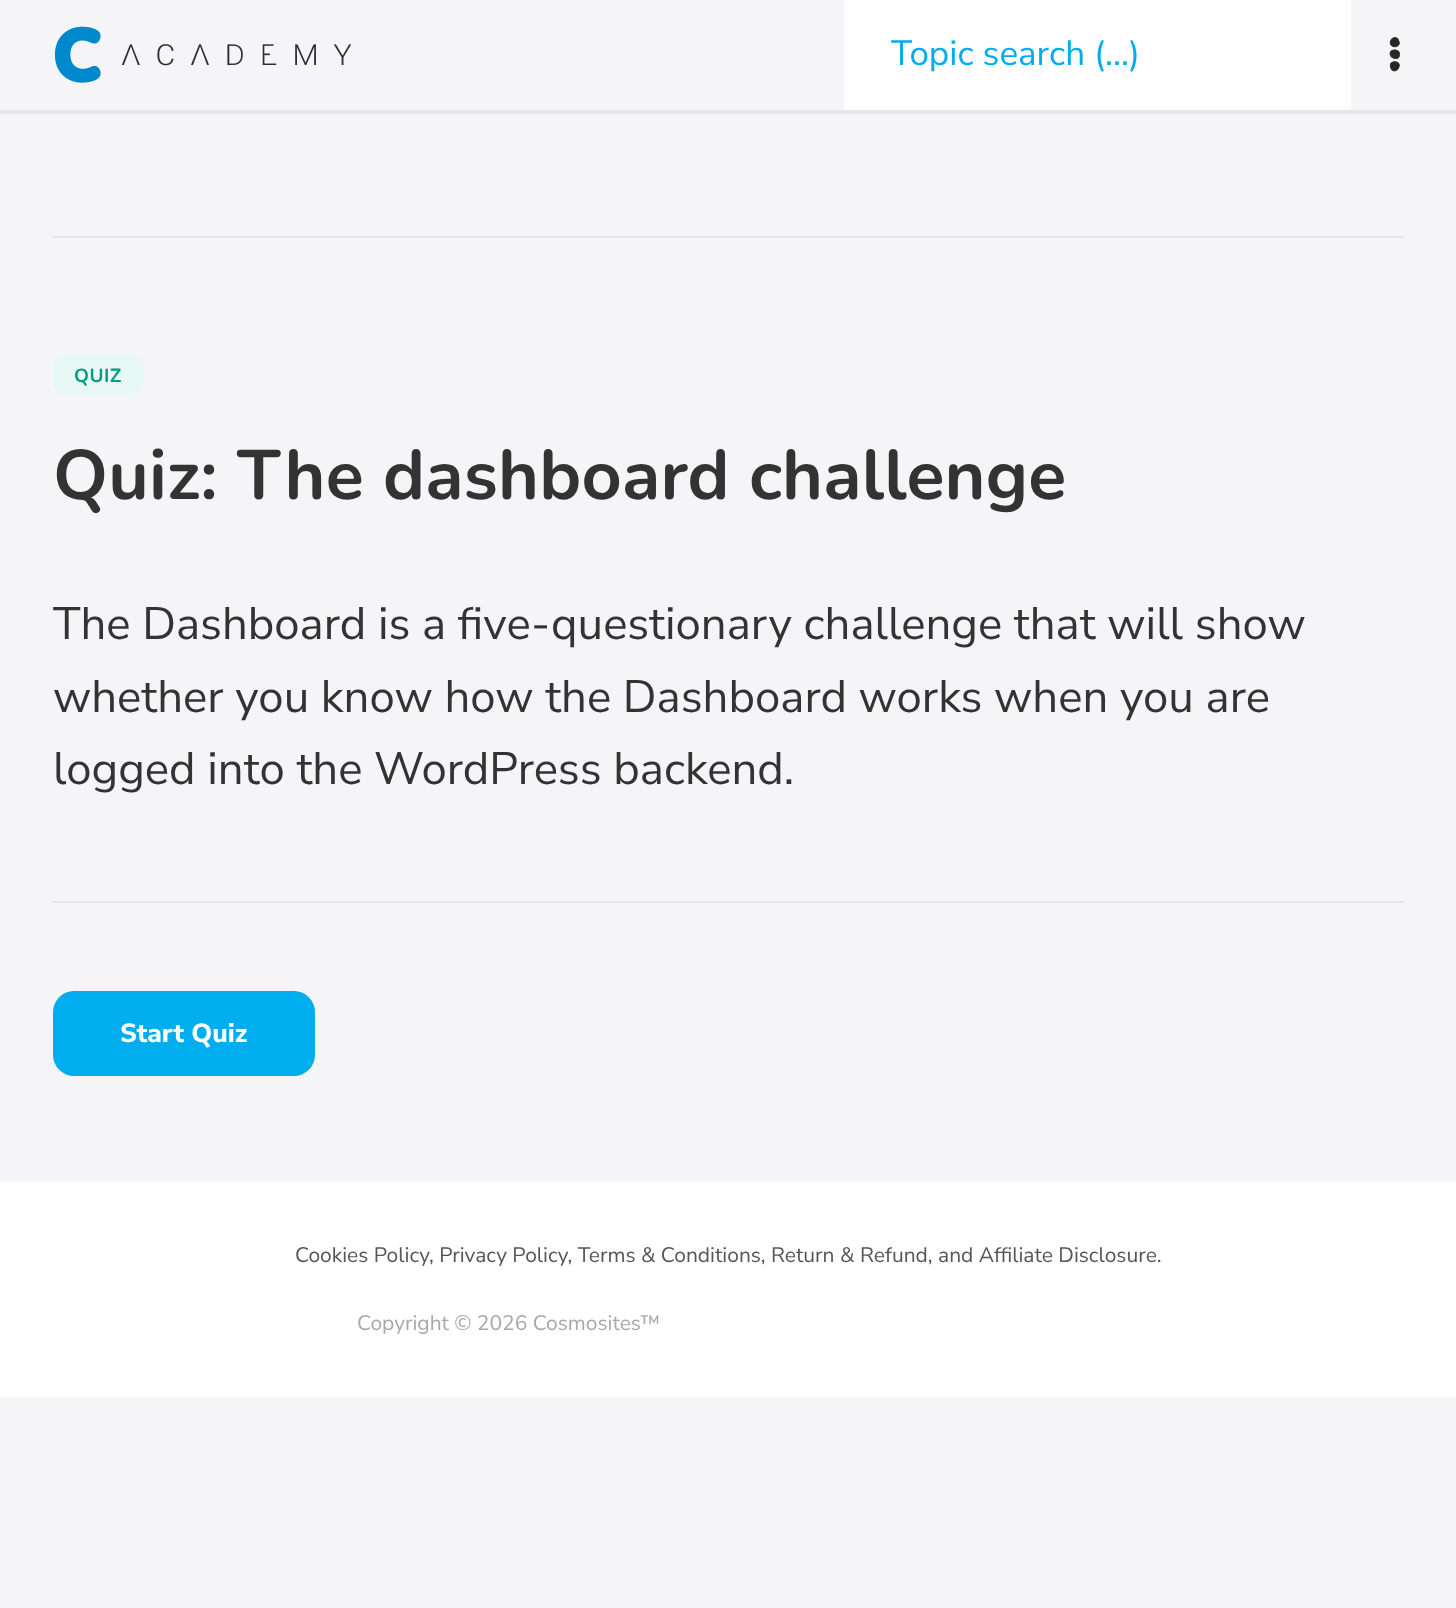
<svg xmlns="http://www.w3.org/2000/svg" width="1456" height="1608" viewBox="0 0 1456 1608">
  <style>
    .t1 { font: 35px Nunito Sans; fill: #00adef; }
    .t2 { font: bold 19px Nunito; letter-spacing: 0.5px; fill: #019e7c; }
    .t3 { font: bold 70px Nunito; letter-spacing: 0.2px; fill: #333; }
    .t4 { font: 45.5px Nunito Sans; fill: #333; }
    .t5 { font: 800 26.25px Nunito Sans; fill: #fff; }
    .t6 { font: 21px Nunito Sans; fill: #565656; }
    .t7 { font: 21px Nunito Sans; fill: #a8a8ab; }
  </style>
  <rect width="100%" height="100%" fill="#f5f5f7"/>
  <image x="54" y="26" width="298" height="57" href="images/1.png"/>
  <rect x="844" y="0" width="507" height="110" fill="#fff"/>
  <text x="891" y="65" class="t1">Topic search (...)</text>
  <image x="1389" y="37" width="11" height="35" href="images/2.png"/>
  <rect x="0" y="110" width="1456" height="4" fill="#e2e7ed"/>
  <rect x="53" y="236" width="1351" height="2" fill="#e2e7ed"/>
  <rect x="54" y="355" width="89" height="40" rx="13" fill="#e8f8f5" stroke="#e8f8f5" stroke-width="2"/>
  <text x="74" y="382" class="t2">QUIZ</text>
  <text x="53" y="499" class="t3">Quiz: The dashboard challenge</text>
  <text x="53" y="639" class="t4">The Dashboard is a five-questionary challenge that will show</text>
  <text x="53" y="712" class="t4">whether you know how the Dashboard works when you are</text>
  <text x="53" y="784" class="t4">logged into the WordPress backend.</text>
  <rect x="53" y="901" width="1351" height="2" fill="#e2e7ed"/>
  <rect x="53" y="991" width="262" height="85" rx="21" fill="#00adef"/>
  <text x="120" y="1042" class="t5">Start Quiz</text>
  <rect x="0" y="1181" width="1456" height="216" fill="#fff"/>
  <text x="295" y="1262" class="t6">Cookies Policy, Privacy Policy, Terms &amp; Conditions, Return &amp; Refund, and Affiliate Disclosure.</text>
  <text x="357" y="1330" class="t7">Copyright © 2026 Cosmosites™</text>
</svg>
